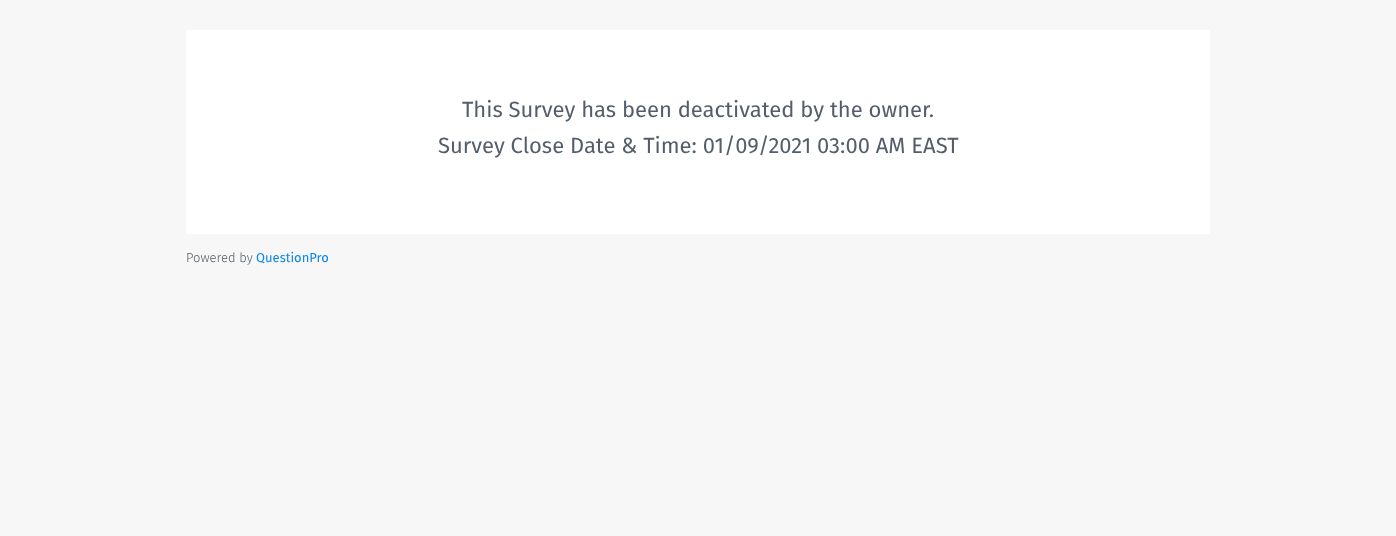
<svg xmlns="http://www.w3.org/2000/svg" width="1396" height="536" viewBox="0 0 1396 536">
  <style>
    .t1 { font: 22px Fira Sans; fill: #545e6b; }
    .t2 { font: 300 13px Fira Sans; fill: #545e6b; }
    .t3 { font: 13px Fira Sans; fill: #0a86ea; }
  </style>
  <rect width="100%" height="100%" fill="#f7f7f7"/>
  <rect x="186" y="30" width="1024" height="204" fill="#fff"/>
  <text x="462" y="117" class="t1">This Survey has been deactivated by the owner.</text>
  <text x="438" y="153" class="t1">Survey Close Date &amp; Time: 01/09/2021 03:00 AM EAST</text>
  <text x="186" y="262" class="t2">Powered by</text>
  <text x="256" y="262" class="t3">QuestionPro</text>
</svg>
